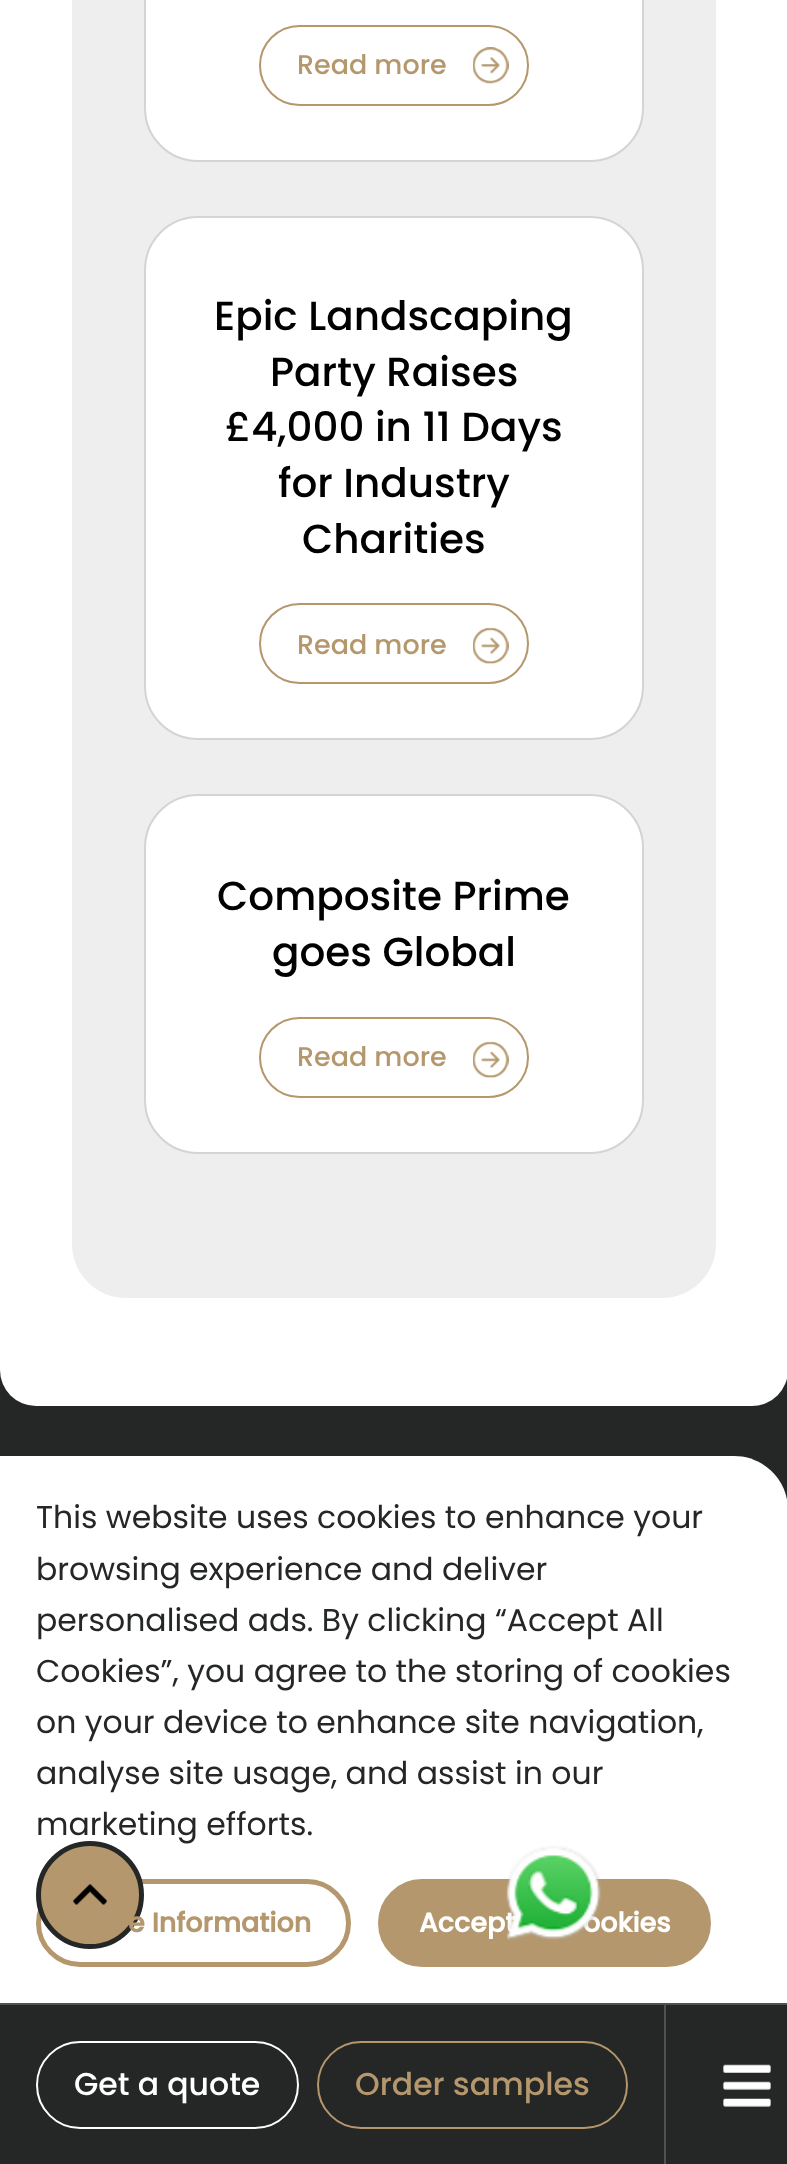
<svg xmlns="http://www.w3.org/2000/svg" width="787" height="2164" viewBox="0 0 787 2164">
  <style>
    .t1 { font: 500 27px Poppins; fill: #b4976c; }
    .t2 { font: 500 40.5px Poppins; fill: #000; }
    .t3 { font: 31.5px Poppins; fill: #252626; }
    .t4 { font: bold 27px Poppins; fill: #fff; }
    .t5 { font: 500 31.5px Poppins; fill: #fff; }
    .t6 { font: 500 31.5px Poppins; fill: #b4976c; }
    .t7 { font: bold 27px Poppins; fill: #b4976c; }
  </style>
  <rect width="100%" height="100%" fill="#252626"/>
  <rect x="0" y="-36" width="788" height="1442" rx="36" fill="#fff"/>
  <rect x="72" y="-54" width="644" height="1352" rx="54" fill="#eee"/>
  <rect x="144" y="-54" width="500" height="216" rx="54" fill="#fff"/>
  <rect x="145" y="-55" width="498" height="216" rx="53" fill="none" stroke="#25262633" stroke-width="2"/>
  <rect x="260" y="26" width="268" height="79" rx="39.5" fill="none" stroke="#b4976c" stroke-width="2"/>
  <text x="297" y="74" class="t1">Read more</text>
  <image x="473" y="47" width="36" height="37" href="images/1.png"/>
  <rect x="144" y="216" width="500" height="524" rx="54" fill="#fff"/>
  <rect x="145" y="217" width="498" height="522" rx="53" fill="none" stroke="#25262633" stroke-width="2"/>
  <text x="214" y="330" class="t2">Epic Landscaping</text>
  <text x="270" y="386" class="t2">Party Raises</text>
  <text x="225" y="441" class="t2">£4,000 in 11 Days</text>
  <text x="278" y="497" class="t2">for Industry</text>
  <text x="302" y="553" class="t2">Charities</text>
  <rect x="260" y="604" width="268" height="79" rx="39.5" fill="none" stroke="#b4976c" stroke-width="2"/>
  <text x="297" y="654" class="t1">Read more</text>
  <image x="473" y="627" width="36" height="38" href="images/2.png"/>
  <rect x="144" y="794" width="500" height="360" rx="54" fill="#fff"/>
  <rect x="145" y="795" width="498" height="358" rx="53" fill="none" stroke="#25262633" stroke-width="2"/>
  <text x="217" y="910" class="t2">Composite Prime</text>
  <text x="272" y="966" class="t2">goes Global</text>
  <rect x="260" y="1018" width="268" height="79" rx="39.5" fill="none" stroke="#b4976c" stroke-width="2"/>
  <text x="297" y="1066" class="t1">Read more</text>
  <image x="473" y="1041" width="36" height="37" href="images/3.png"/>
  <path d="M0 1456H734C764 1456 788 1480 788 1510V2003H0Z" fill="#fff"/>
  <text x="36" y="1835" class="t3">marketing efforts.</text>
  <rect x="38.5" y="1881.5" width="310" height="83" rx="41.5" fill="none" stroke="#b4976c" stroke-width="5"/>
  <circle cx="90" cy="1895" r="51.5" fill="#b4976c" stroke="#252626" stroke-width="5"/>
  <image x="73" y="1884" width="34" height="21" href="images/4.png"/>
  <rect x="380.5" y="1881.5" width="328" height="83" rx="41.5" fill="#b4976c" stroke="#b4976c" stroke-width="5"/>
  <text x="419" y="1932" class="t4">Accept</text>
  <text x="583" y="1932" class="t4">ookies</text>
  <image x="506" y="1845" width="96" height="96" href="images/5.png"/>
  <rect x="0" y="2003" width="787" height="2" fill="#515151"/>
  <rect x="37" y="2042" width="261" height="86" rx="43" fill="none" stroke="#fff" stroke-width="2"/>
  <text x="74" y="2095" class="t5">Get a quote</text>
  <rect x="318" y="2042" width="309" height="86" rx="43" fill="none" stroke="#b4976c" stroke-width="2"/>
  <text x="355" y="2095" class="t6">Order samples</text>
  <rect x="664" y="2005" width="2" height="159" fill="#515151"/>
  <image x="723" y="2064" width="48" height="43" href="images/6.png"/>
  <text x="36" y="1528" class="t3">This website uses cookies to enhance your</text>
  <text x="36" y="1580" class="t3">browsing experience and deliver</text>
  <text x="36" y="1631" class="t3">personalised ads. By clicking “Accept All</text>
  <text x="36" y="1682" class="t3">Cookies”, you agree to the storing of cookies</text>
  <text x="36" y="1733" class="t3">on your device to enhance site navigation,</text>
  <text x="36" y="1784" class="t3">analyse site usage, and assist in our</text>
  <text x="128" y="1932" class="t7">e Information</text>
</svg>
